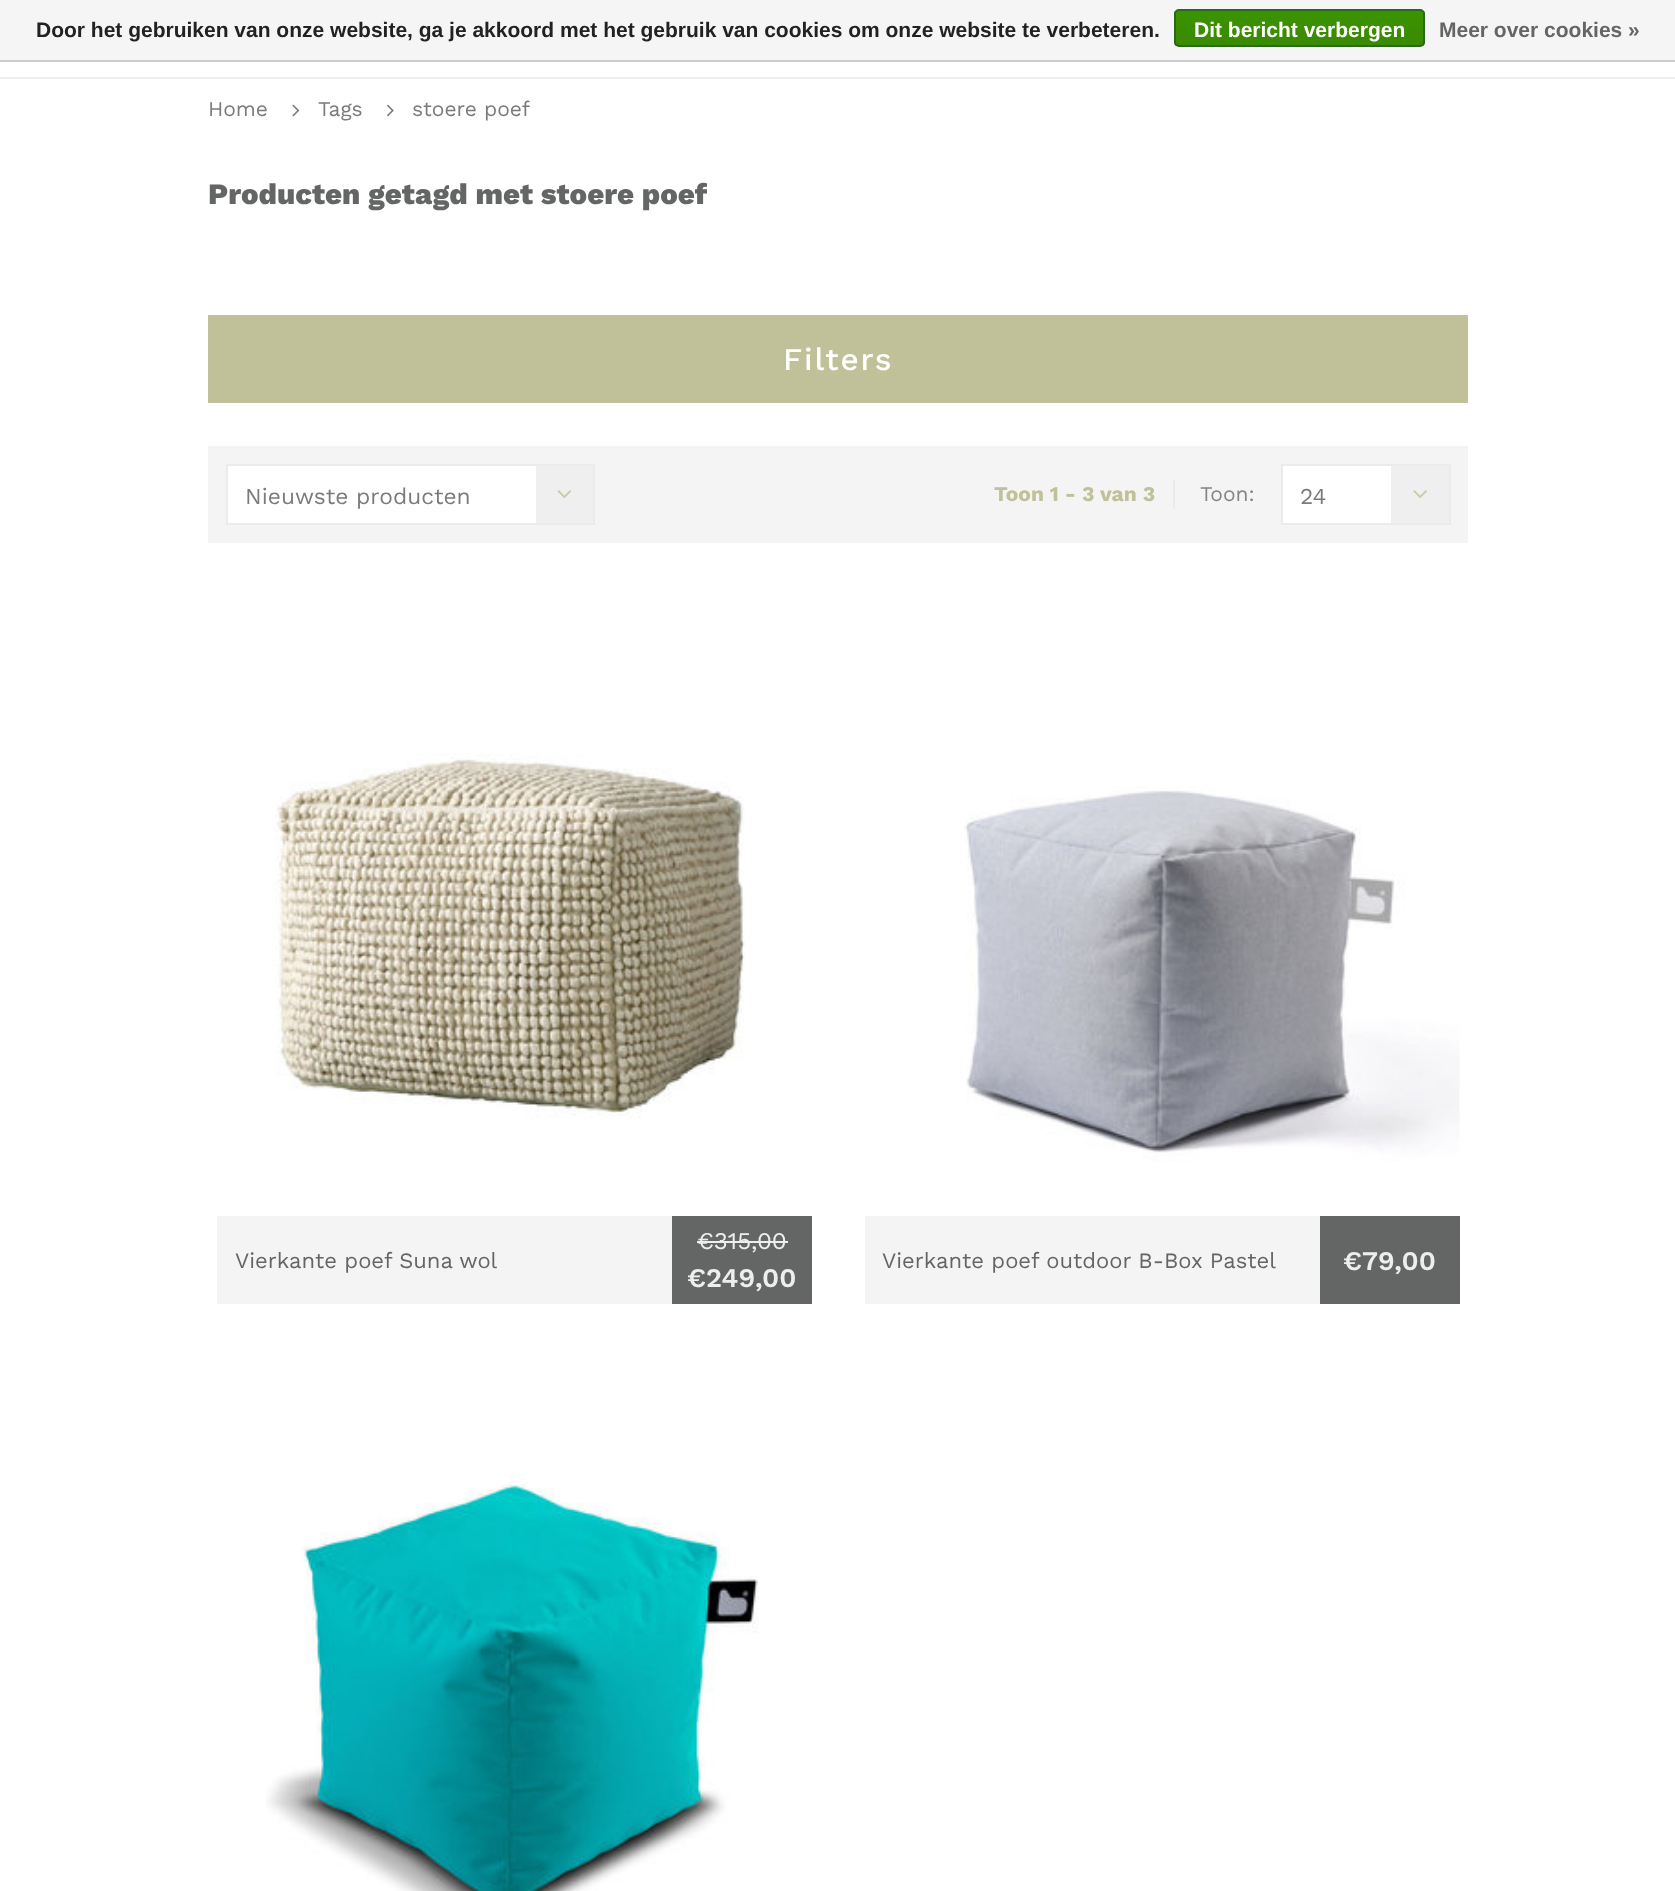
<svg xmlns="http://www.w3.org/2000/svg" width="1675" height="1891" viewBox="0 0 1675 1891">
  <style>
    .t1 { font: bold 21px Liberation Sans; fill: #222; }
    .t2 { font: bold 21px Liberation Sans; fill: #fff; }
    .t3 { font: bold 21px Liberation Sans; fill: #646565; }
    .t4 { font: 21px Work Sans; fill: #7b7b7b; }
    .t5 { font: 800 29.4px Work Sans; fill: #646565; }
    .t6 { font: 500 31.5px Work Sans; letter-spacing: 1.75px; fill: #fff; }
    .t7 { font: 22.75px Work Sans; fill: #7b7b7b; }
    .t8 { font: bold 21px Work Sans; fill: #c1c199; }
    .t9 { font: 21px Work Sans; fill: #858585; }
    .t10 { font: 22px Work Sans; fill: #646565; }
    .t11 { font: 24px Work Sans; fill: #eee; }
    .t12 { font: 600 27px Work Sans; fill: #eee; }
  </style>
  <defs>
    <clipPath id="clip1"><rect x="1174" y="9" width="251" height="38" rx="5"/></clipPath>
    <linearGradient id="g1" gradientUnits="userSpaceOnUse" x1="1299" y1="10" x2="1299" y2="46"><stop offset="0" stop-color="#3c9300"/><stop offset="1" stop-color="#398a00"/></linearGradient>
  </defs>
  <rect width="100%" height="100%" fill="#fff"/>
  <rect x="0" y="0" width="1675" height="60" fill="#f5f5f5"/>
  <rect x="0" y="60" width="1675" height="2" fill="#ccc"/>
  <text x="36" y="37" class="t1">Door het gebruiken van onze website, ga je akkoord met het gebruik van cookies om onze website te verbeteren.</text>
  <g clip-path="url(#clip1)">
    <rect x="1174" y="11" width="251" height="35" fill="url(#g1)"/>
  </g>
  <rect x="1175" y="10" width="249" height="36" rx="4" fill="none" stroke="#29691d" stroke-width="2"/>
  <text x="1194" y="37" class="t2">Dit bericht verbergen</text>
  <text x="1439" y="37" class="t3">Meer over cookies »</text>
  <rect x="0" y="77" width="1675" height="2" fill="#eee"/>
  <text x="208" y="116" class="t4">Home</text>
  <image x="292" y="104" width="8" height="13" href="images/1.png"/>
  <text x="318" y="116" class="t4">Tags</text>
  <image x="387" y="104" width="7" height="13" href="images/2.png"/>
  <text x="412" y="116" class="t4">stoere poef</text>
  <text x="208" y="204" class="t5">Producten getagd met stoere poef</text>
  <rect x="208" y="315" width="1260" height="88" fill="#c1c199"/>
  <text x="783" y="370" class="t6">Filters</text>
  <rect x="208" y="446" width="1260" height="97" fill="#f4f4f4"/>
  <rect x="228" y="466" width="308" height="57" fill="#fff"/>
  <rect x="227" y="465" width="367" height="59" fill="none" stroke="#ebebeb" stroke-width="2"/>
  <text x="245" y="504" class="t7">Nieuwste producten</text>
  <rect x="536" y="466" width="57" height="57" fill="#efefef"/>
  <image x="557" y="490" width="15" height="8" href="images/3.png"/>
  <rect x="1173" y="480" width="2" height="29" fill="#ebebeb"/>
  <text x="994" y="501" class="t8">Toon 1 - 3 van 3</text>
  <text x="1200" y="501" class="t9">Toon:</text>
  <rect x="1283" y="466" width="108" height="57" fill="#fff"/>
  <rect x="1282" y="465" width="168" height="59" fill="none" stroke="#ebebeb" stroke-width="2"/>
  <text x="1300" y="504" class="t7">24</text>
  <rect x="1391" y="466" width="58" height="57" fill="#efefef"/>
  <image x="1413" y="490" width="14" height="8" href="images/4.png"/>
  <image x="275" y="753" width="470" height="366" href="images/5.png"/>
  <rect x="217" y="1216" width="455" height="88" fill="#f4f4f4"/>
  <text x="235" y="1268" class="t10">Vierkante poef Suna wol</text>
  <rect x="672" y="1216" width="140" height="88" fill="#646565"/>
  <text x="697" y="1249" class="t11">€315,00</text>
  <rect x="697" y="1241" width="91" height="2" fill="#eee"/>
  <text x="687" y="1287" class="t12">€249,00</text>
  <image x="964" y="786" width="496" height="376" href="images/6.png"/>
  <rect x="865" y="1216" width="455" height="88" fill="#f4f4f4"/>
  <text x="882" y="1268" class="t10">Vierkante poef outdoor B-Box Pastel</text>
  <rect x="1320" y="1216" width="140" height="88" fill="#646565"/>
  <text x="1343" y="1270" class="t12">€79,00</text>
  <image x="266" y="1473" width="493" height="418" href="images/7.png"/>
</svg>
